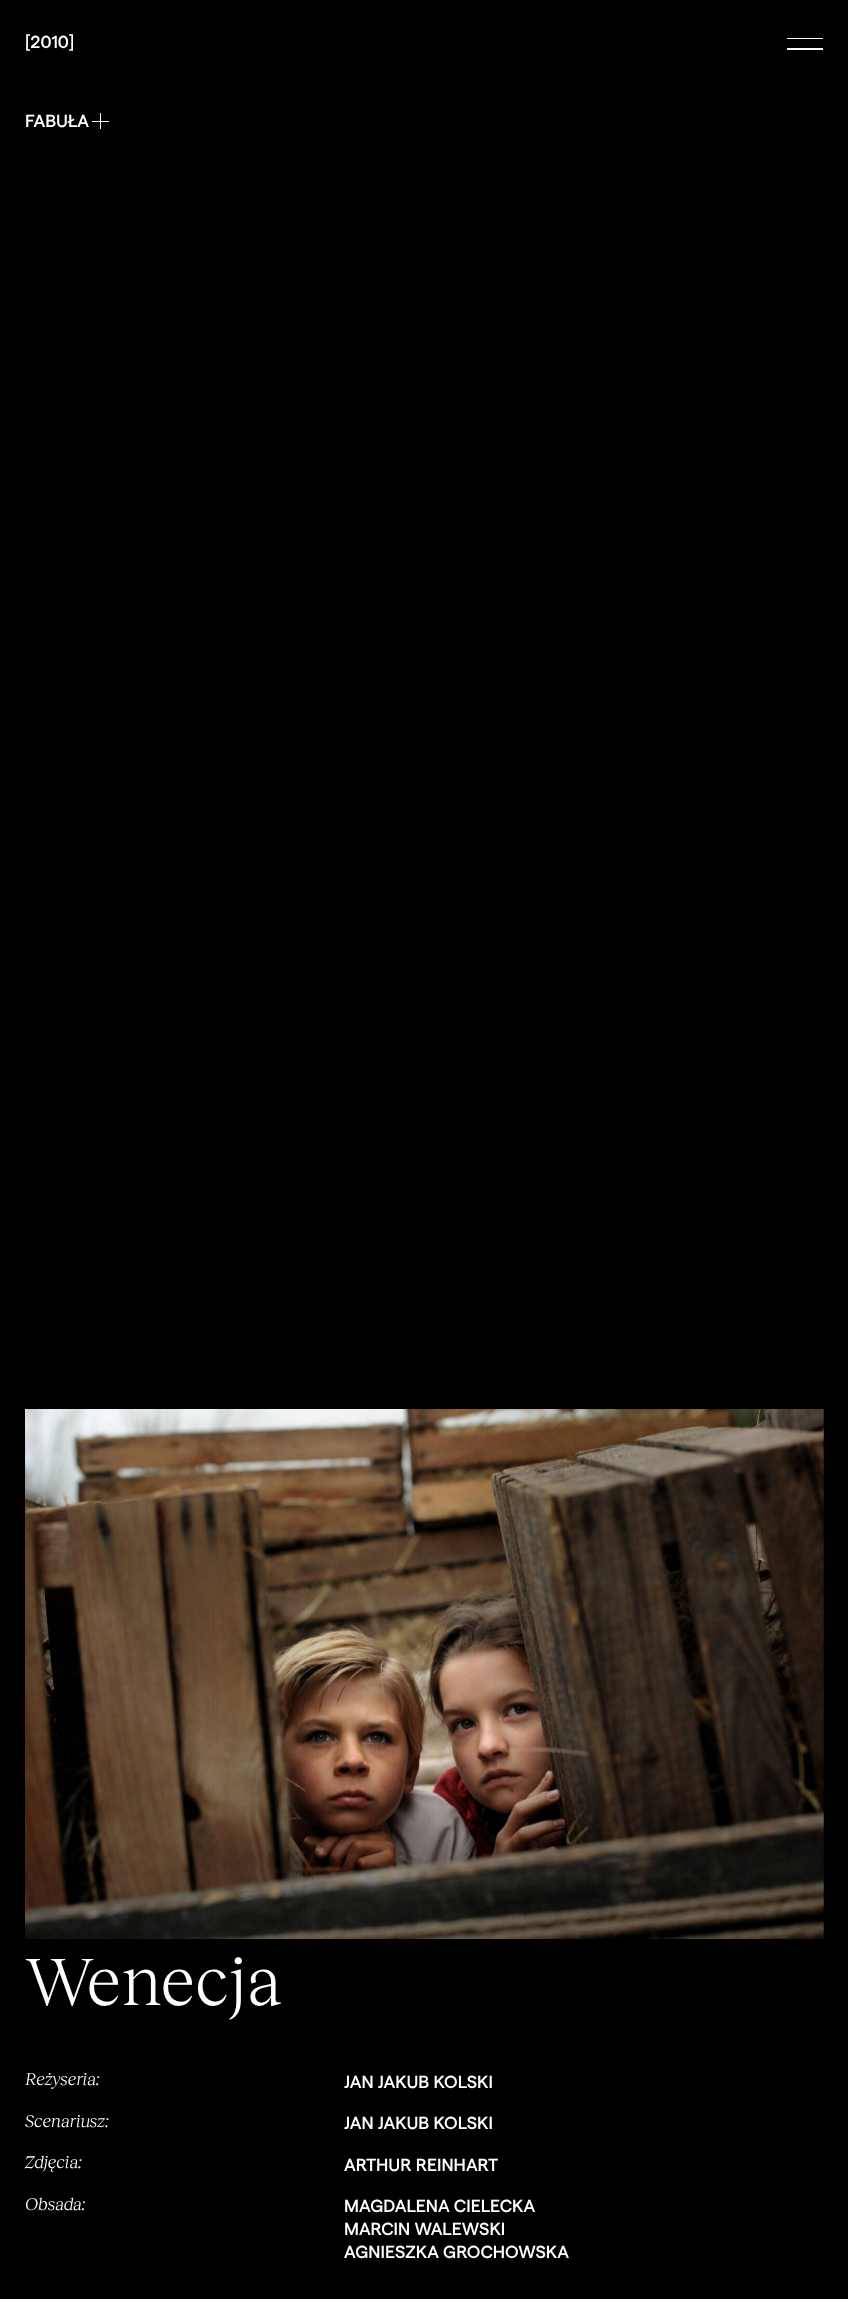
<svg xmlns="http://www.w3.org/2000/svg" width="848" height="2299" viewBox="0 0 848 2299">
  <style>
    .t1 { font: 500 17.5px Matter; fill: #fff; }
    .t2 { font: 69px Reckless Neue; fill: #fff; }
    .t3 { font: italic 17.5px Reckless Neue; fill: #fff; }
  </style>
  <rect width="100%" height="100%" fill="#000"/>
  <text x="25" y="48" class="t1">[2010]</text>
  <text x="25" y="127" class="t1">FABUŁA</text>
  <rect x="100" y="113" width="1" height="16" fill="#fff"/>
  <rect x="92" y="121" width="17" height="1" fill="#fff"/>
  <image x="25" y="1409" width="799" height="530" href="images/1.png"/>
  <text x="25" y="2005" class="t2">Wenecja</text>
  <text x="25" y="2085" class="t3">Reżyseria:</text>
  <text x="344" y="2088" class="t1">JAN JAKUB KOLSKI</text>
  <text x="25" y="2127" class="t3">Scenariusz:</text>
  <text x="344" y="2129" class="t1">JAN JAKUB KOLSKI</text>
  <text x="25" y="2168" class="t3">Zdjęcia:</text>
  <text x="344" y="2171" class="t1">ARTHUR REINHART</text>
  <text x="25" y="2210" class="t3">Obsada:</text>
  <text x="344" y="2212" class="t1">MAGDALENA CIELECKA</text>
  <text x="344" y="2235" class="t1">MARCIN WALEWSKI</text>
  <text x="344" y="2258" class="t1">AGNIESZKA GROCHOWSKA</text>
  <rect x="787" y="38" width="36" height="1" fill="#fff"/>
  <rect x="787" y="48" width="36" height="2" fill="#fff"/>
</svg>
